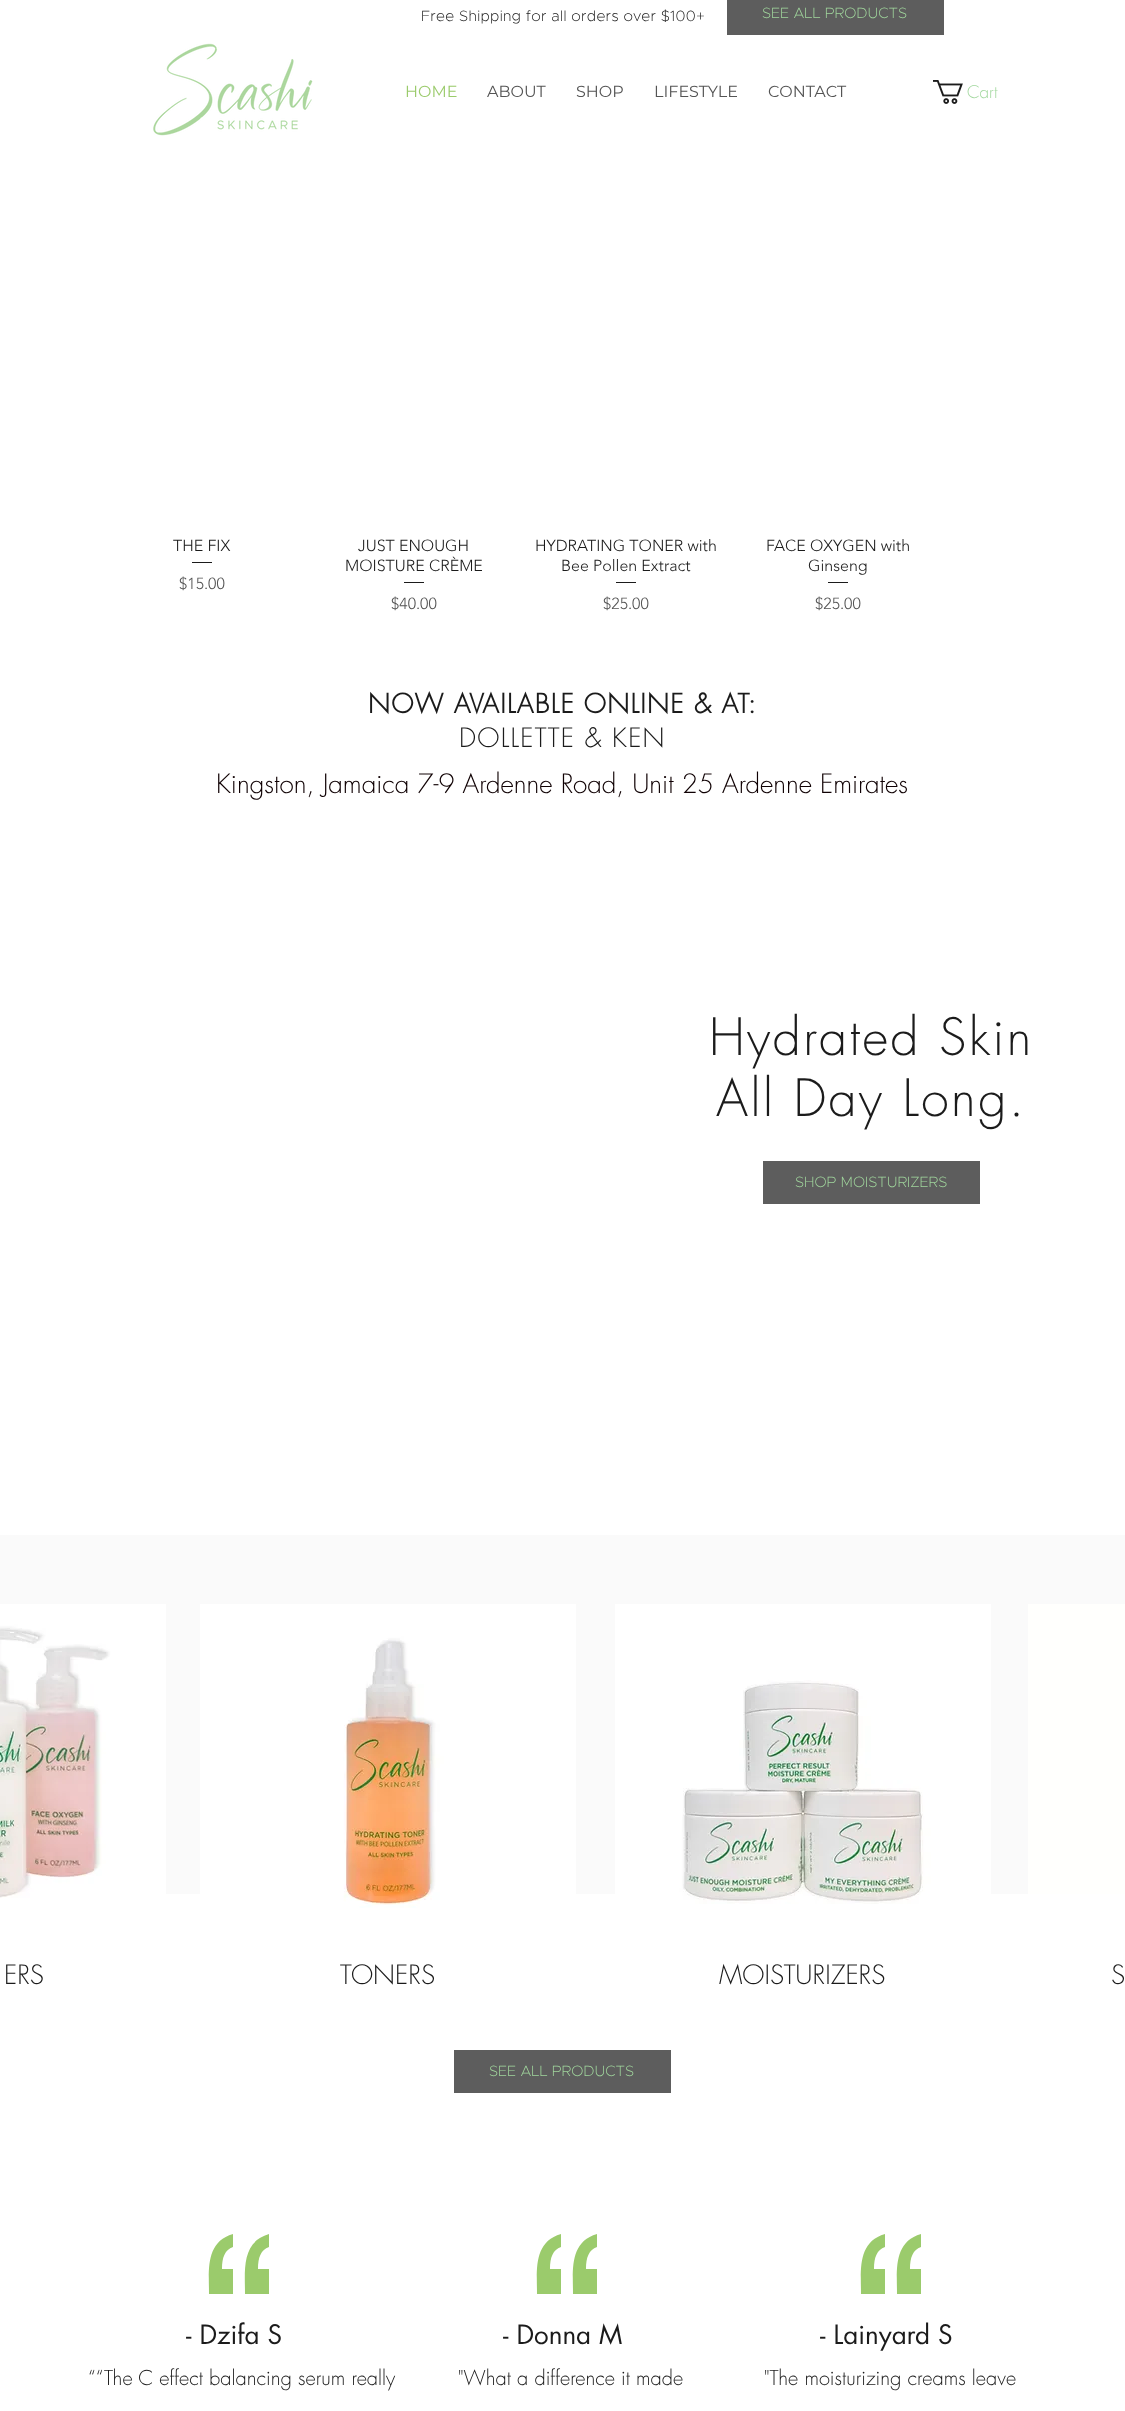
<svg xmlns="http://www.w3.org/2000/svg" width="1125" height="2411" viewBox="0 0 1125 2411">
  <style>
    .t1 { font: 200 15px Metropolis; fill: #a1d79d; }
    .t2 { font: 300 16px 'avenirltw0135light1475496'; fill: #1b1b1b; }
    .t3 { font: 300 16px 'avenirltw0135light1475496'; fill: #545454; }
    .t4 { font: bold 26px futura; letter-spacing: 1.3px; fill: #1b1b1b; }
    .t5 { font: 300 26px futura; letter-spacing: 1.3px; fill: #1b1b1b; }
    .t6 { font: 300 26px futura; fill: #0f0003; }
    .t7 { font: 300 50px futura; letter-spacing: 2.5px; fill: #1b1b1b; }
    .t8 { font: 300 26px futura; fill: #1b1b1b; }
    .t9 { font: 26px futura; fill: #1b1b1b; }
    .t10 { font: 300 20px futura; fill: #1b1b1b; }
    .t11 { font: 200 15px Metropolis; letter-spacing: 0.3px; fill: #1b1b1b; }
    .t12 { font: 16px Montserrat; fill: #9bcb6c; }
    .t13 { font: 16px Montserrat; fill: #545454; }
    .t14 { font: 300 17px futura; fill: #a1d79d; }
  </style>
  <rect width="100%" height="100%" fill="#fff"/>
  <rect x="727" y="0" width="217" height="35" fill="#5d5d5d"/>
  <text x="762" y="18" class="t1">SEE ALL PRODUCTS</text>
  <text x="173" y="551" class="t2">THE FIX</text>
  <rect x="192" y="562" width="20" height="1" fill="#1b1b1b"/>
  <text x="179" y="589" class="t3">$15.00</text>
  <text x="358" y="551" class="t2">JUST ENOUGH</text>
  <text x="345" y="571" class="t2">MOISTURE CRÈME</text>
  <rect x="404" y="582" width="20" height="1" fill="#1b1b1b"/>
  <text x="391" y="609" class="t3">$40.00</text>
  <text x="535" y="551" class="t2">HYDRATING TONER with</text>
  <text x="561" y="571" class="t2">Bee Pollen Extract</text>
  <rect x="616" y="582" width="20" height="1" fill="#1b1b1b"/>
  <text x="603" y="609" class="t3">$25.00</text>
  <text x="766" y="551" class="t2">FACE OXYGEN with</text>
  <text x="808" y="571" class="t2">Ginseng</text>
  <rect x="828" y="582" width="20" height="1" fill="#1b1b1b"/>
  <text x="815" y="609" class="t3">$25.00</text>
  <text x="368" y="713" class="t4">NOW AVAILABLE ONLINE &amp; AT:</text>
  <text x="459" y="747" class="t5">DOLLETTE &amp; KEN</text>
  <text x="216" y="793" class="t6">Kingston, Jamaica 7-9 Ardenne Road, Unit 25 Ardenne Emirates</text>
  <text x="709" y="1055" class="t7">Hydrated Skin</text>
  <text x="716" y="1116" class="t7">All Day Long.</text>
  <rect x="763" y="1161" width="217" height="43" fill="#5d5d5d"/>
  <text x="795" y="1187" class="t1">SHOP MOISTURIZERS</text>
  <rect x="0" y="1535" width="1125" height="359" fill="#fafafa"/>
  <image x="0" y="1604" width="166" height="294" href="images/1.png"/>
  <image x="200" y="1604" width="376" height="304" href="images/2.png"/>
  <image x="615" y="1604" width="376" height="300" href="images/3.png"/>
  <rect x="1028" y="1604" width="97" height="290" fill="#fffffd"/>
  <text x="4" y="1984" class="t8">ERS</text>
  <text x="340" y="1984" class="t8">TONERS</text>
  <text x="719" y="1984" class="t8">MOISTURIZERS</text>
  <text x="1111" y="1984" class="t8">S</text>
  <rect x="454" y="2050" width="217" height="43" fill="#5d5d5d"/>
  <text x="489" y="2076" class="t1">SEE ALL PRODUCTS</text>
  <path d="M209 2294C209 2271 205 2242 233 2234V2247C225 2250 222 2257 222 2269H233V2294ZM245 2294C245 2271 241 2242 269 2234V2247C261 2250 258 2257 258 2269H269V2294Z" fill="#9bcb6c"/>
  <text x="186" y="2344" class="t9">- Dzifa S</text>
  <text x="88" y="2385" class="t10">““The C effect balancing serum really</text>
  <path d="M537 2294C537 2271 533 2242 561 2234V2247C553 2250 550 2257 550 2269H561V2294ZM573 2294C573 2271 569 2242 597 2234V2247C589 2250 586 2257 586 2269H597V2294Z" fill="#9bcb6c"/>
  <text x="503" y="2344" class="t9">- Donna M</text>
  <text x="458" y="2385" class="t10">"What a difference it made</text>
  <path d="M861 2294C861 2271 857 2242 885 2234V2247C877 2250 874 2257 874 2269H885V2294ZM897 2294C897 2271 893 2242 921 2234V2247C913 2250 910 2257 910 2269H921V2294Z" fill="#9bcb6c"/>
  <text x="820" y="2344" class="t9">- Lainyard S</text>
  <text x="764" y="2385" class="t10">"The moisturizing creams leave</text>
  <text x="421" y="21" class="t11">Free Shipping for all orders over $100+</text>
  <image x="153" y="43" width="160" height="93" href="images/4.png"/>
  <text x="405" y="97" class="t12">HOME</text>
  <text x="487" y="97" class="t13">ABOUT</text>
  <text x="576" y="97" class="t13">SHOP</text>
  <text x="654" y="97" class="t13">LIFESTYLE</text>
  <text x="768" y="97" class="t13">CONTACT</text>
  <image x="933" y="80" width="30" height="24" href="images/5.png"/>
  <text x="967" y="98" class="t14">Cart</text>
</svg>
